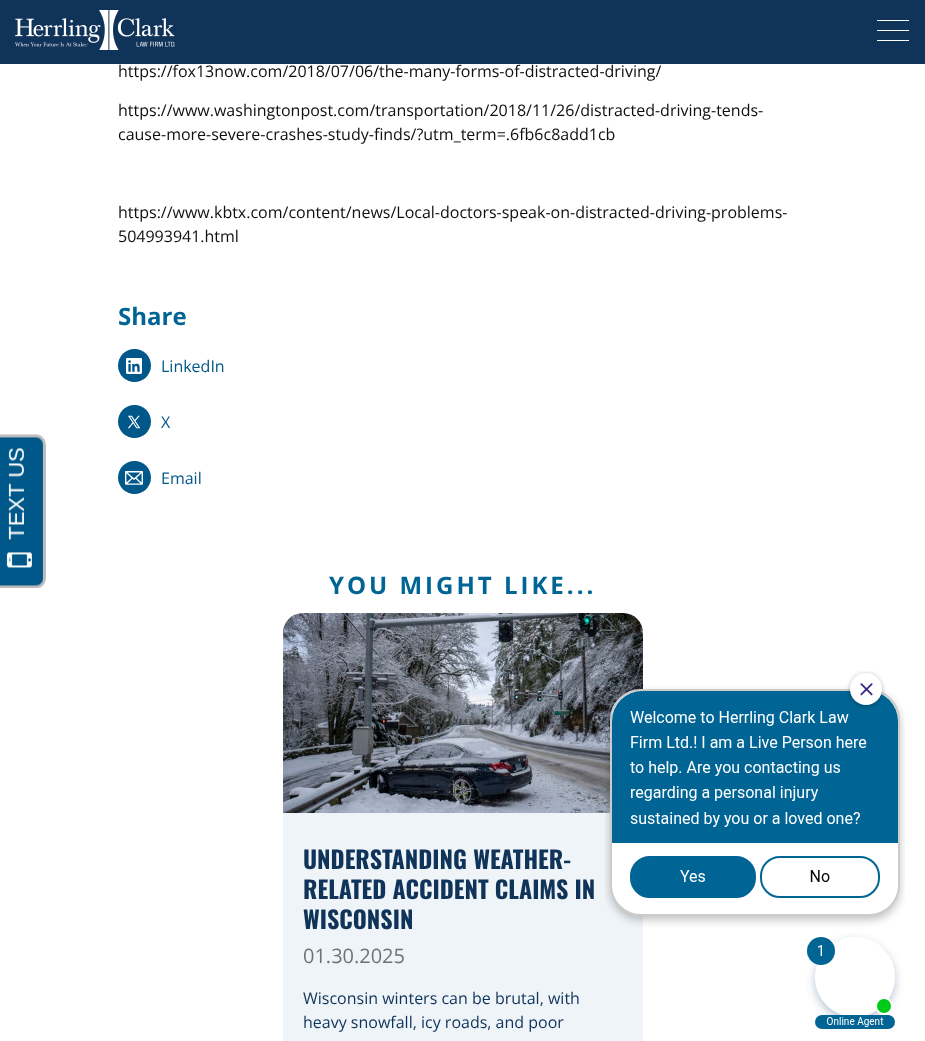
<svg xmlns="http://www.w3.org/2000/svg" width="925" height="1041" viewBox="0 0 925 1041">
  <style>
    .t1 { font: 16px Open Sans; fill: #0f0f0f; }
    .t2 { font: bold 24px Open Sans; fill: #006595; }
    .t3 { font: 16px Open Sans; fill: #005789; }
    .t4 { font: bold 24px Open Sans; letter-spacing: 3px; fill: #006595; }
    .t5 { font: bold 24px Oswald; fill: #103359; }
    .t6 { font: 20px Open Sans; fill: #6a737b; }
    .t7 { font: 16px Open Sans; fill: #103359; }
  </style>
  <rect width="100%" height="100%" fill="#fff"/>
  <image x="0" y="434" width="46" height="154" href="images/1.png"/>
  <rect x="0" y="0" width="925" height="64" fill="#103359"/>
  <image x="15" y="10" width="160" height="40" href="images/2.png"/>
  <rect x="877" y="30" width="32" height="1" fill="#fff"/>
  <rect x="877" y="20" width="32" height="1" fill="#fff"/>
  <rect x="877" y="40" width="32" height="1" fill="#fff"/>
  <text x="118" y="77" class="t1">https://fox13now.com/2018/07/06/the-many-forms-of-distracted-driving/</text>
  <text x="118" y="116" class="t1">https://www.washingtonpost.com/transportation/2018/11/26/distracted-driving-tends-</text>
  <text x="118" y="140" class="t1">cause-more-severe-crashes-study-finds/?utm_term=.6fb6c8add1cb</text>
  <text x="118" y="218" class="t1">https://www.kbtx.com/content/news/Local-doctors-speak-on-distracted-driving-problems-</text>
  <text x="118" y="242" class="t1">504993941.html</text>
  <text x="118" y="325" class="t2">Share</text>
  <circle cx="134.5" cy="365.5" r="16.5" fill="#005789"/>
  <image x="126" y="358" width="16" height="16" href="images/3.png"/>
  <text x="161" y="372" class="t3">LinkedIn</text>
  <circle cx="134.5" cy="421.5" r="16.5" fill="#005789"/>
  <image x="127" y="415" width="14" height="14" href="images/4.png"/>
  <text x="161" y="428" class="t3">X</text>
  <circle cx="134.5" cy="477.5" r="16.5" fill="#005789"/>
  <image x="125" y="471" width="18" height="14" href="images/5.png"/>
  <text x="161" y="484" class="t3">Email</text>
  <text x="329" y="594" class="t4">YOU MIGHT LIKE...</text>
  <image x="283" y="613" width="360" height="200" href="images/6.png"/>
  <rect x="283" y="813" width="360" height="228" fill="#eef4f8"/>
  <text x="303" y="869" class="t5">UNDERSTANDING WEATHER-</text>
  <text x="303" y="899" class="t5">RELATED ACCIDENT CLAIMS IN</text>
  <text x="303" y="929" class="t5">WISCONSIN</text>
  <text x="303" y="963" class="t6">01.30.2025</text>
  <text x="303" y="1004" class="t7">Wisconsin winters can be brutal, with</text>
  <text x="303" y="1028" class="t7">heavy snowfall, icy roads, and poor</text>
  <image x="605" y="671" width="300" height="358" href="images/7.png"/>
</svg>
